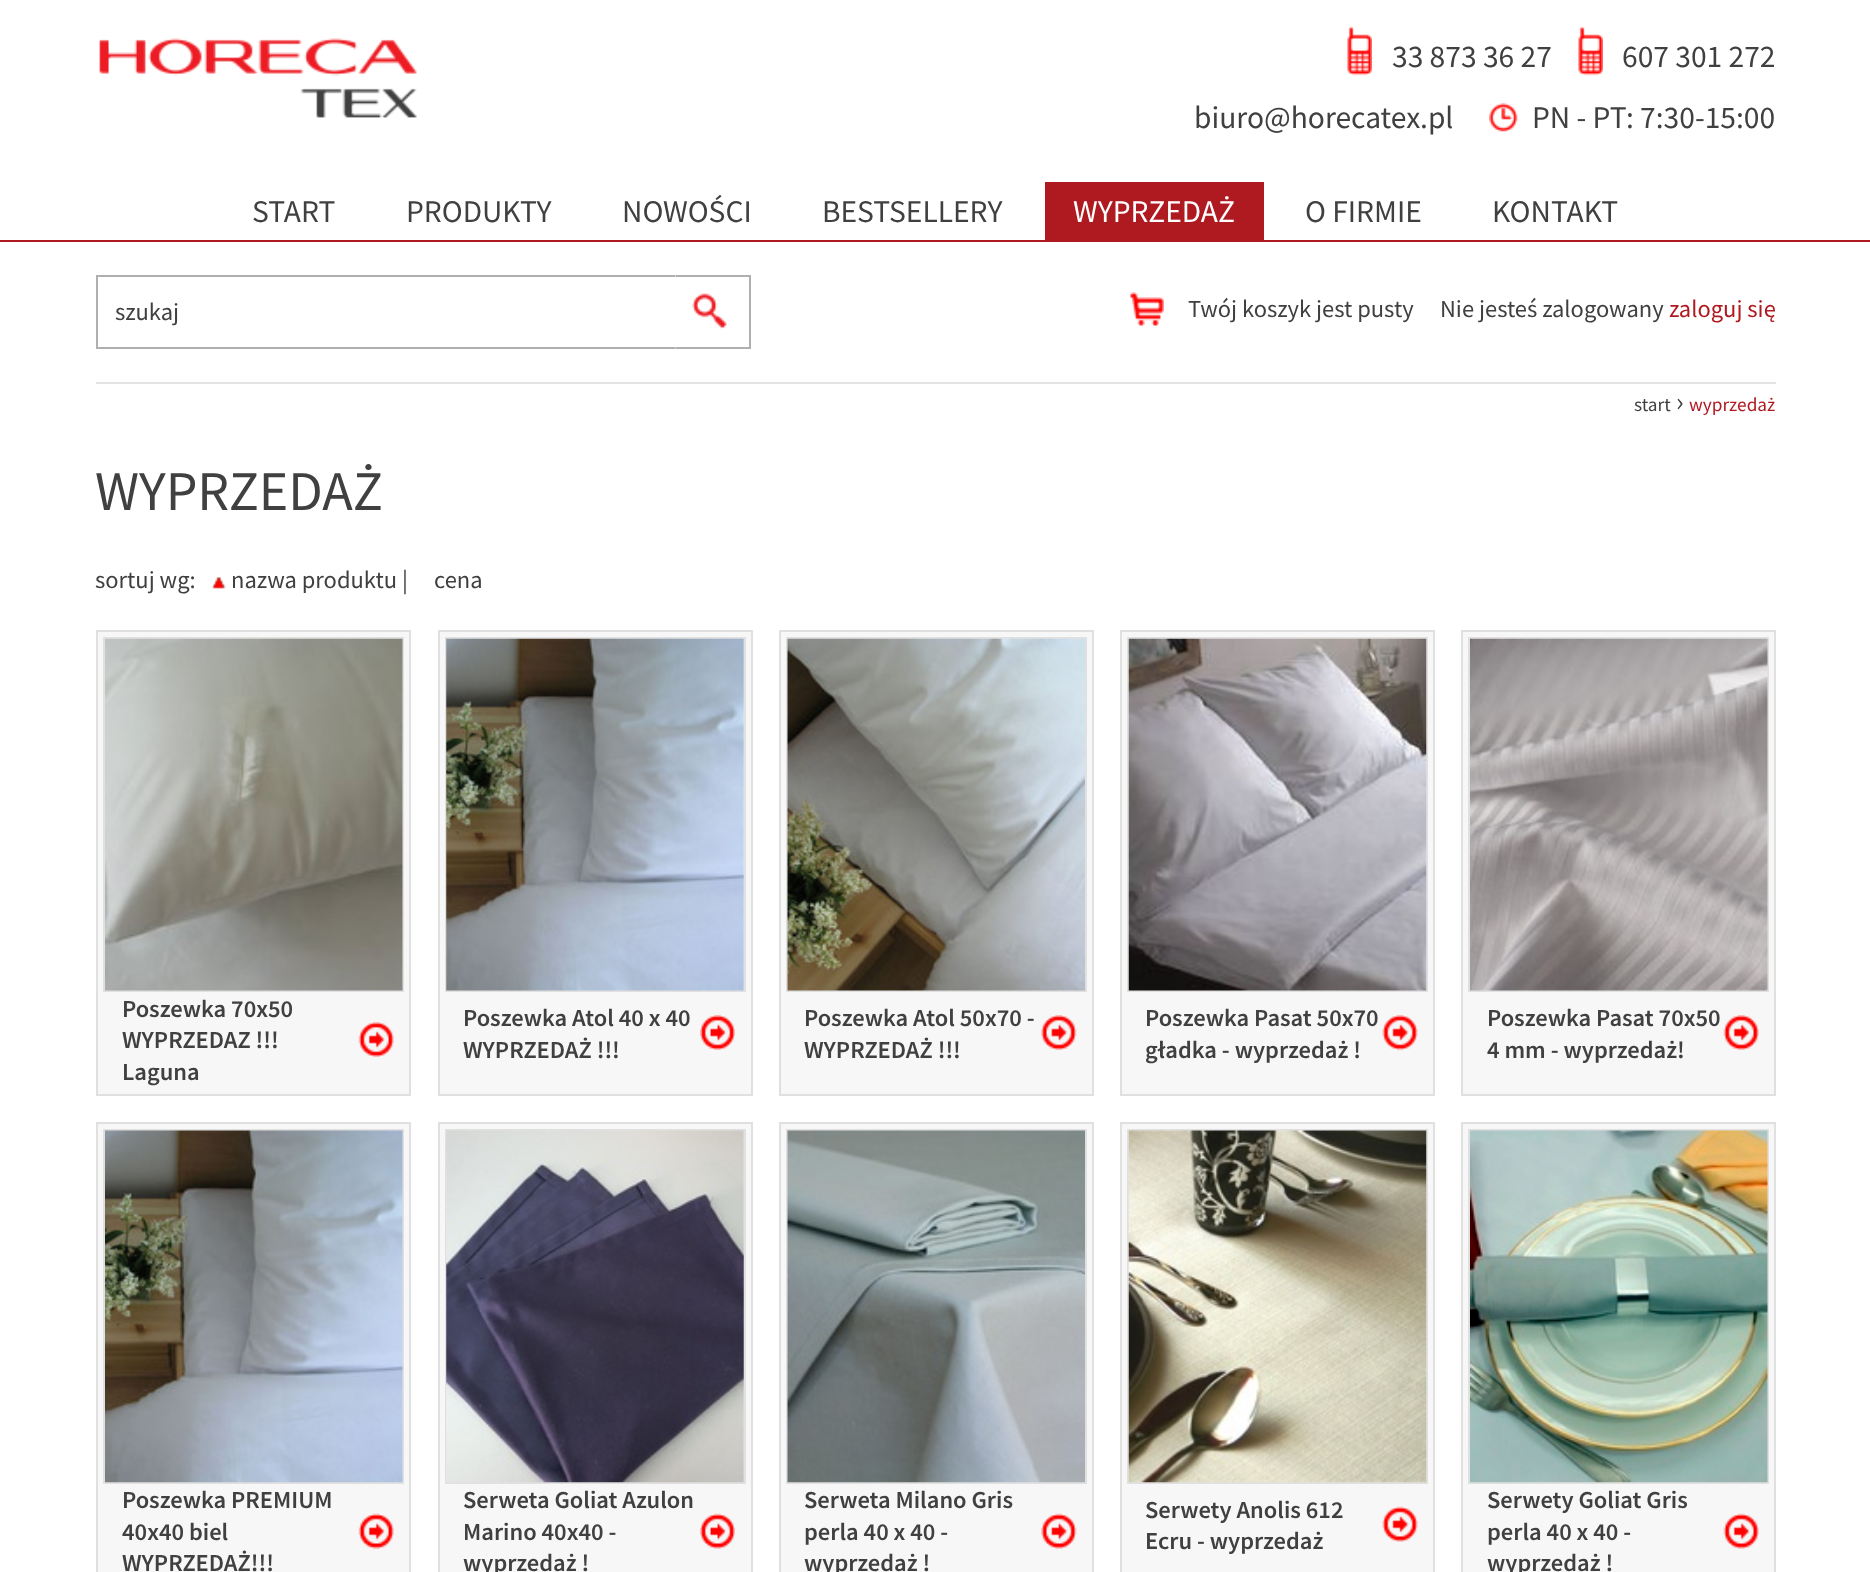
<svg xmlns="http://www.w3.org/2000/svg" width="1870" height="1572" viewBox="0 0 1870 1572">
  <style>
    .t1 { font: 31.5px Source Sans Pro; fill: #404041; }
    .t2 { font: 31.5px Source Sans Pro; fill: #fff; }
    .t3 { font: 24.5px Source Sans Pro; fill: #404041; }
    .t4 { font: 24.5px Source Sans Pro; fill: #af1a21; }
    .t5 { font: 19.25px Source Sans Pro; fill: #404041; }
    .t6 { font: 28px Source Sans Pro; fill: #404041; }
    .t7 { font: 19.25px Source Sans Pro; fill: #af1a21; }
    .t8 { font: 56px Source Sans Pro; fill: #404041; }
    .t9 { font: 600 24.5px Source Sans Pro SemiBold; fill: #404041; }
  </style>
  <rect width="100%" height="100%" fill="#fff"/>
  <image x="99" y="38" width="318" height="80" href="images/1.png"/>
  <image x="1347" y="26" width="25" height="50" href="images/2.png"/>
  <text x="1392" y="67" class="t1">33 873 36 27</text>
  <image x="1578" y="26" width="25" height="50" href="images/3.png"/>
  <text x="1622" y="67" class="t1">607 301 272</text>
  <text x="1194" y="128" class="t1">biuro@horecatex.pl</text>
  <image x="1489" y="103" width="29" height="29" href="images/4.png"/>
  <text x="1532" y="128" class="t1">PN - PT: 7:30-15:00</text>
  <text x="252" y="222" class="t1">START</text>
  <text x="406" y="222" class="t1">PRODUKTY</text>
  <text x="622" y="222" class="t1">NOWOŚCI</text>
  <text x="822" y="222" class="t1">BESTSELLERY</text>
  <rect x="1045" y="182" width="219" height="58" fill="#af1a21"/>
  <text x="1073" y="222" class="t2">WYPRZEDAŻ</text>
  <text x="1305" y="222" class="t1">O FIRMIE</text>
  <text x="1492" y="222" class="t1">KONTAKT</text>
  <rect x="0" y="240" width="1870" height="2" fill="#af1a21"/>
  <rect x="96" y="382" width="1680" height="2" fill="#e3e3e3"/>
  <rect x="96" y="275" width="580" height="2" fill="#afafaf"/>
  <rect x="96" y="347" width="580" height="2" fill="#afafaf"/>
  <rect x="96" y="275" width="2" height="73" fill="#afafaf"/>
  <text x="115" y="320" class="t3">szukaj</text>
  <image x="675" y="275" width="52" height="74" href="images/5.png"/>
  <rect x="676" y="275" width="75" height="2" fill="#afafaf"/>
  <rect x="749" y="275" width="2" height="73" fill="#afafaf"/>
  <rect x="676" y="347" width="75" height="2" fill="#afafaf"/>
  <image x="1130" y="292" width="34" height="34" href="images/6.png"/>
  <text x="1188" y="317" class="t3">Twój koszyk jest pusty</text>
  <text x="1440" y="317" class="t3">Nie jesteś zalogowany</text>
  <text x="1669" y="317" class="t4">zaloguj się</text>
  <text x="1634" y="411" class="t5">start</text>
  <text x="1676" y="411" class="t6">›</text>
  <text x="1689" y="411" class="t7">wyprzedaż</text>
  <text x="95" y="510" class="t8">WYPRZEDAŻ</text>
  <text x="95" y="588" class="t3">sortuj wg:</text>
  <image x="211" y="577" width="15" height="12" href="images/7.png"/>
  <text x="231" y="588" class="t3">nazwa produktu |</text>
  <text x="434" y="588" class="t3">cena</text>
  <rect x="97" y="631" width="313" height="464" fill="#f7f7f7" stroke="#e0e0e0" stroke-width="2"/>
  <rect x="104" y="638" width="299" height="353" fill="none" stroke="#e0e0e0" stroke-width="2"/>
  <image x="105" y="638" width="298" height="353" href="images/8.png"/>
  <text x="122" y="1017" class="t9">Poszewka 70x50</text>
  <text x="122" y="1048" class="t9">WYPRZEDAZ !!!</text>
  <text x="122" y="1080" class="t9">Laguna</text>
  <image x="358" y="1022" width="36" height="35" href="images/9.png"/>
  <rect x="439" y="631" width="313" height="464" fill="#f7f7f7" stroke="#e0e0e0" stroke-width="2"/>
  <rect x="446" y="638" width="299" height="353" fill="none" stroke="#e0e0e0" stroke-width="2"/>
  <image x="446" y="638" width="298" height="353" href="images/10.png"/>
  <text x="463" y="1026" class="t9">Poszewka Atol 40 x 40</text>
  <text x="463" y="1058" class="t9">WYPRZEDAŻ !!!</text>
  <image x="700" y="1015" width="35" height="35" href="images/11.png"/>
  <rect x="780" y="631" width="313" height="464" fill="#f7f7f7" stroke="#e0e0e0" stroke-width="2"/>
  <rect x="787" y="638" width="299" height="353" fill="none" stroke="#e0e0e0" stroke-width="2"/>
  <image x="787" y="638" width="298" height="353" href="images/12.png"/>
  <text x="804" y="1026" class="t9">Poszewka Atol 50x70 -</text>
  <text x="804" y="1058" class="t9">WYPRZEDAŻ !!!</text>
  <image x="1041" y="1015" width="36" height="35" href="images/13.png"/>
  <rect x="1121" y="631" width="313" height="464" fill="#f7f7f7" stroke="#e0e0e0" stroke-width="2"/>
  <rect x="1128" y="638" width="299" height="353" fill="none" stroke="#e0e0e0" stroke-width="2"/>
  <image x="1128" y="638" width="299" height="353" href="images/14.png"/>
  <text x="1145" y="1026" class="t9">Poszewka Pasat 50x70</text>
  <text x="1145" y="1058" class="t9">gładka - wyprzedaż !</text>
  <image x="1382" y="1015" width="36" height="35" href="images/15.png"/>
  <rect x="1462" y="631" width="313" height="464" fill="#f7f7f7" stroke="#e0e0e0" stroke-width="2"/>
  <rect x="1469" y="638" width="299" height="353" fill="none" stroke="#e0e0e0" stroke-width="2"/>
  <image x="1470" y="638" width="298" height="353" href="images/16.png"/>
  <text x="1487" y="1026" class="t9">Poszewka Pasat 70x50</text>
  <text x="1487" y="1058" class="t9">4 mm - wyprzedaż!</text>
  <image x="1723" y="1015" width="36" height="35" href="images/17.png"/>
  <rect x="97" y="1123" width="313" height="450" fill="#f7f7f7" stroke="#e0e0e0" stroke-width="2"/>
  <rect x="104" y="1130" width="299" height="353" fill="none" stroke="#e0e0e0" stroke-width="2"/>
  <image x="105" y="1130" width="298" height="353" href="images/18.png"/>
  <text x="122" y="1508" class="t9">Poszewka PREMIUM</text>
  <text x="122" y="1540" class="t9">40x40 biel</text>
  <text x="122" y="1571" class="t9">WYPRZEDAŻ!!!</text>
  <image x="358" y="1513" width="36" height="36" href="images/19.png"/>
  <rect x="439" y="1123" width="313" height="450" fill="#f7f7f7" stroke="#e0e0e0" stroke-width="2"/>
  <rect x="446" y="1130" width="299" height="353" fill="none" stroke="#e0e0e0" stroke-width="2"/>
  <image x="446" y="1130" width="298" height="353" href="images/20.png"/>
  <text x="463" y="1508" class="t9">Serweta Goliat Azulon</text>
  <text x="463" y="1540" class="t9">Marino 40x40 -</text>
  <text x="463" y="1571" class="t9">wyprzedaż !</text>
  <image x="700" y="1513" width="35" height="36" href="images/21.png"/>
  <rect x="780" y="1123" width="313" height="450" fill="#f7f7f7" stroke="#e0e0e0" stroke-width="2"/>
  <rect x="787" y="1130" width="299" height="353" fill="none" stroke="#e0e0e0" stroke-width="2"/>
  <image x="787" y="1130" width="298" height="353" href="images/22.png"/>
  <text x="804" y="1508" class="t9">Serweta Milano Gris</text>
  <text x="804" y="1540" class="t9">perla 40 x 40 -</text>
  <text x="804" y="1571" class="t9">wyprzedaż !</text>
  <image x="1041" y="1513" width="36" height="36" href="images/23.png"/>
  <rect x="1121" y="1123" width="313" height="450" fill="#f7f7f7" stroke="#e0e0e0" stroke-width="2"/>
  <rect x="1128" y="1130" width="299" height="353" fill="none" stroke="#e0e0e0" stroke-width="2"/>
  <image x="1128" y="1130" width="299" height="353" href="images/24.png"/>
  <text x="1145" y="1518" class="t9">Serwety Anolis 612</text>
  <text x="1145" y="1549" class="t9">Ecru - wyprzedaż</text>
  <image x="1382" y="1506" width="36" height="36" href="images/25.png"/>
  <rect x="1462" y="1123" width="313" height="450" fill="#f7f7f7" stroke="#e0e0e0" stroke-width="2"/>
  <rect x="1469" y="1130" width="299" height="353" fill="none" stroke="#e0e0e0" stroke-width="2"/>
  <image x="1470" y="1130" width="298" height="353" href="images/26.png"/>
  <text x="1487" y="1508" class="t9">Serwety Goliat Gris</text>
  <text x="1487" y="1540" class="t9">perla 40 x 40 -</text>
  <text x="1487" y="1571" class="t9">wyprzedaż !</text>
  <image x="1723" y="1513" width="36" height="36" href="images/27.png"/>
</svg>
